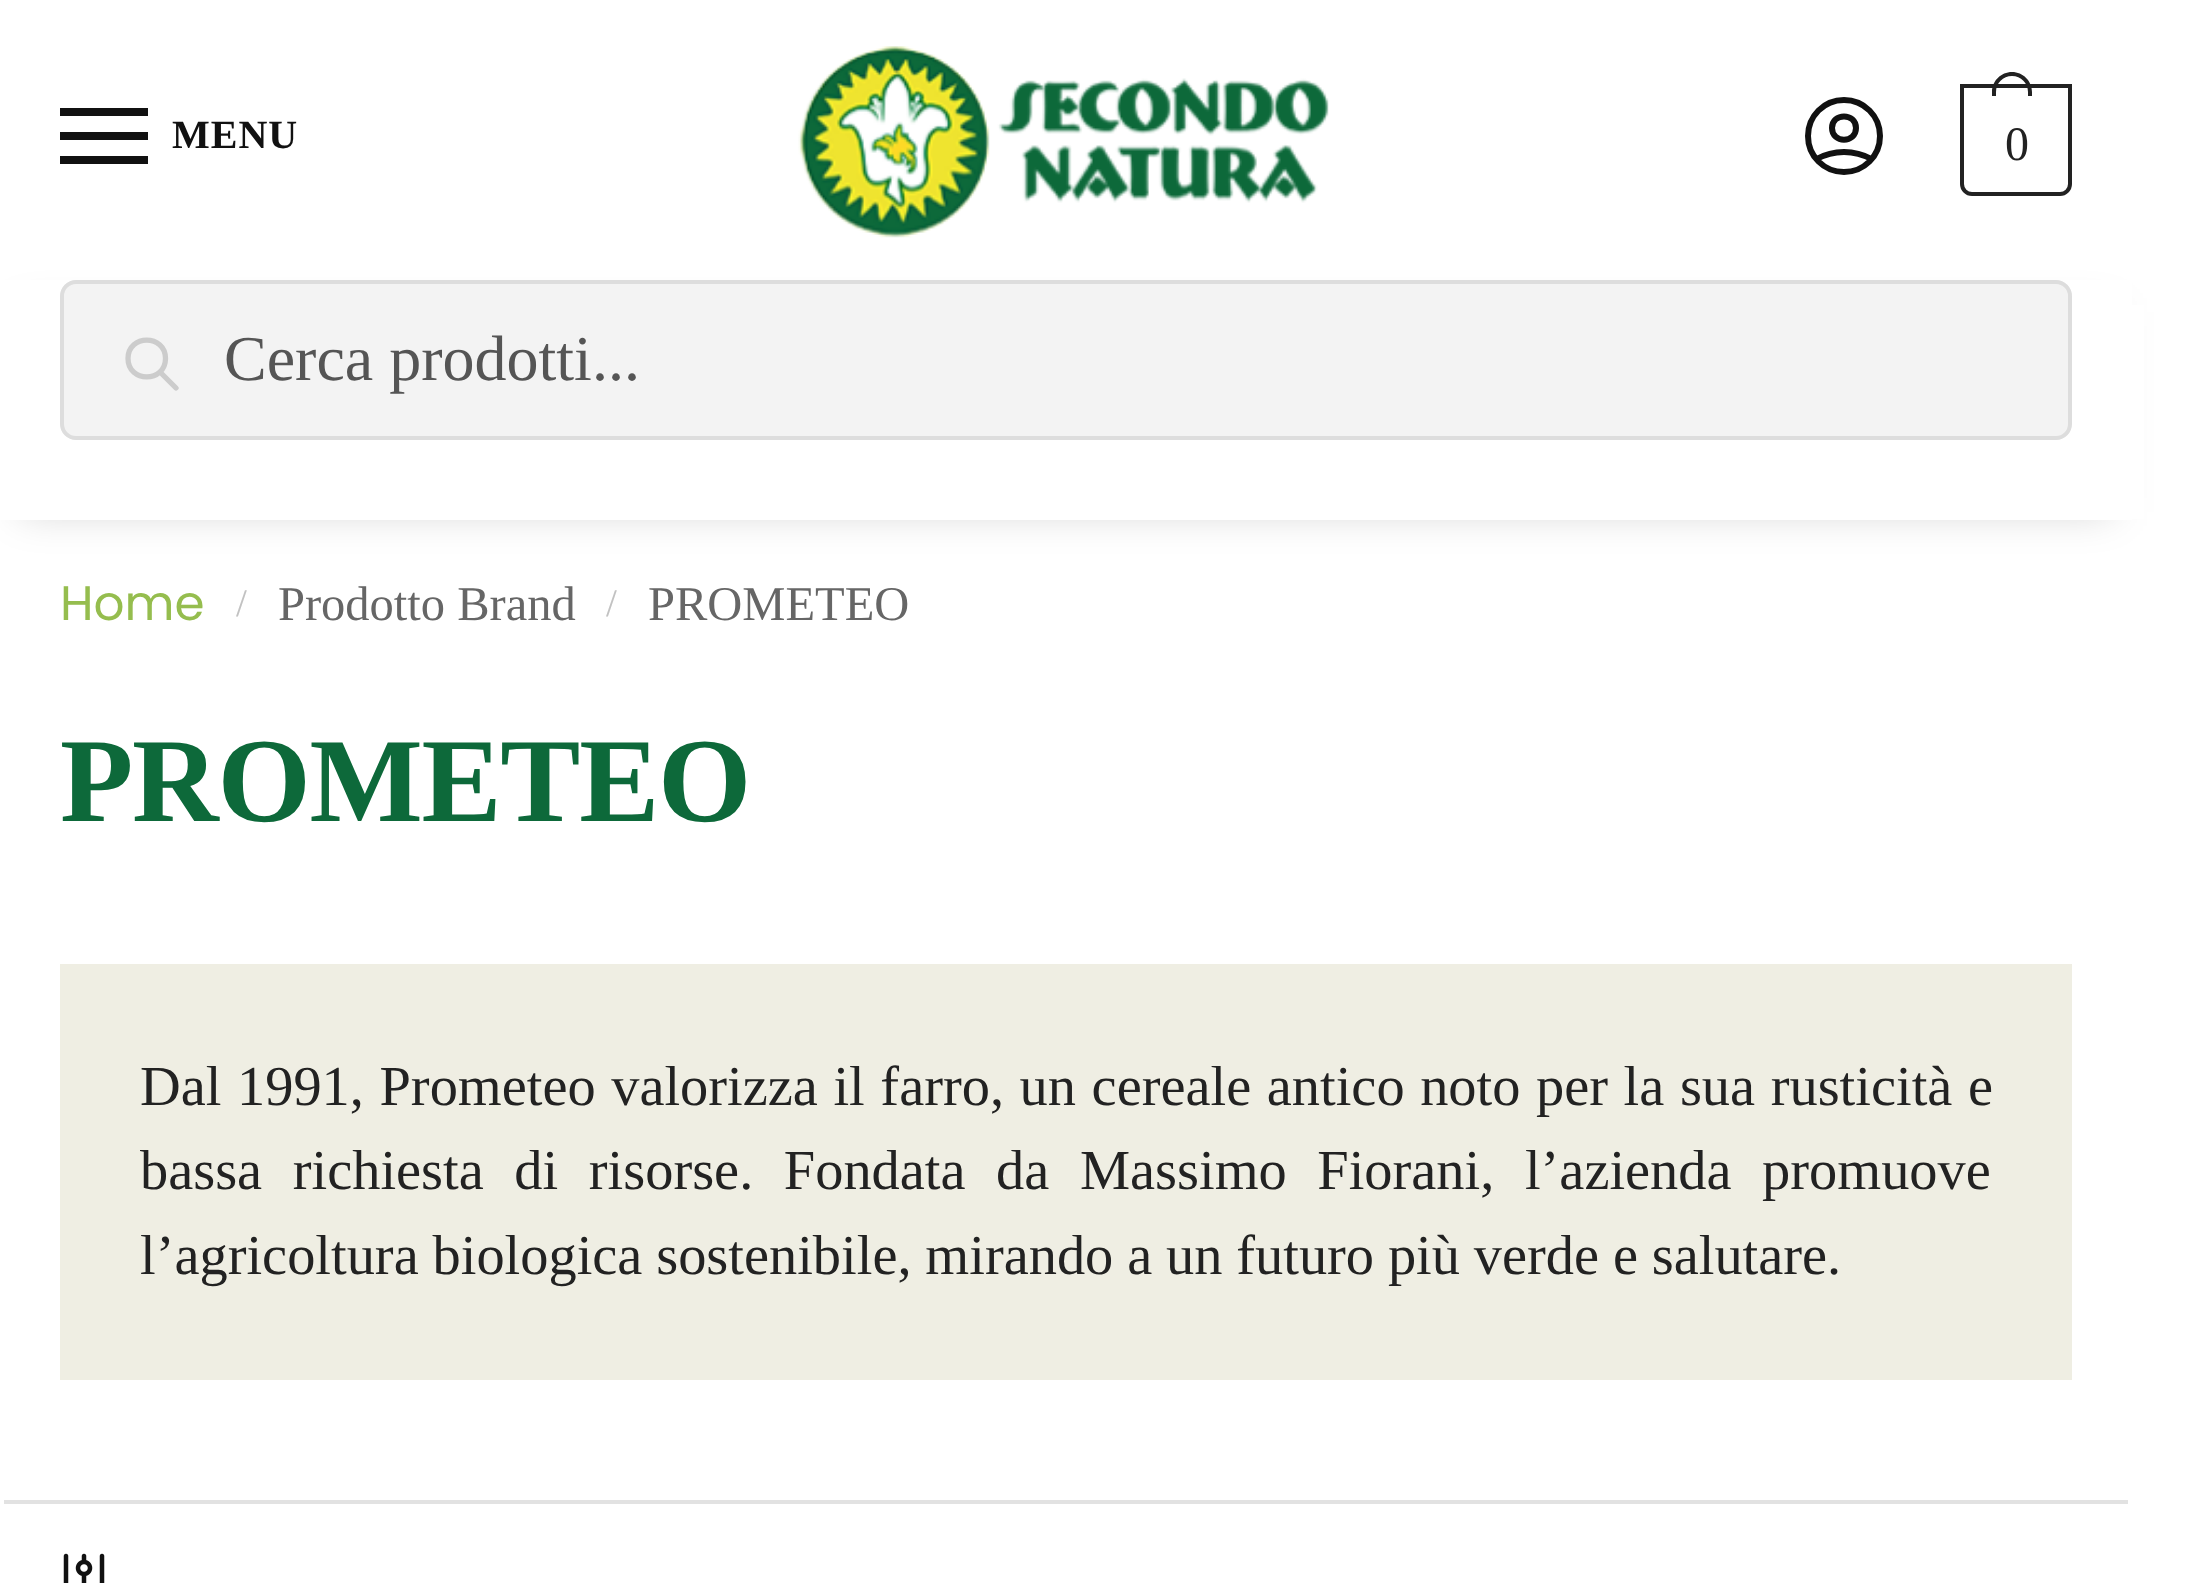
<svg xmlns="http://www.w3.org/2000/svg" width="2190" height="1583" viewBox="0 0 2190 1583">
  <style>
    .t1 { font: bold 40px Liberation Serif; letter-spacing: 1px; fill: #111; }
    .t2 { font: 48px Liberation Serif; letter-spacing: -3px; fill: #222; }
    .t3 { font: 64px Liberation Serif; fill: #555; }
    .t4 { font: 48.5px Poppins; fill: #95bd4e; }
    .t5 { font: 39px Liberation Serif; fill: #c2c2c2; }
    .t6 { font: 48.5px Liberation Serif; fill: #666; }
    .t7 { font: bold 120px Liberation Serif; letter-spacing: -1.25px; fill: #0d693a; }
    .t8 { font: 56.4px Liberation Serif; fill: #222; }
  </style>
  <rect width="100%" height="100%" fill="#fff"/>
  <rect x="60" y="108" width="88" height="8" fill="#111"/>
  <rect x="60" y="132" width="88" height="8" fill="#111"/>
  <text x="172" y="148" class="t1">MENU</text>
  <rect x="60" y="156" width="88" height="8" fill="#111"/>
  <image x="798" y="46" width="531" height="192" href="images/1.png"/>
  <path d="M1816.5 159C1833.5 149.5 1854.5 149.5 1871.5 159M1856 128C1856 143.5 1832 143.5 1832 128C1832 112.5 1856 112.5 1856 128ZM1880 136C1880 156 1864 172 1844 172C1824 172 1808 156 1808 136C1808 116 1824 100 1844 100C1864 100 1880 116 1880 136Z" fill="none" stroke="#111" stroke-width="6" stroke-linecap="round" stroke-linejoin="round"/>
  <path d="M1962 86H2070V184C2070 189.5 2065.5 194 2060 194H1972C1966.5 194 1962 189.5 1962 184Z" fill="none" stroke="#222" stroke-width="4"/>
  <path d="M2012 72C2023 72 2032 81 2032 92V96H1992V92C1992 81 2001 72 2012 72ZM2012 76C2021 76 2028 83 2028 92V96H1996V92C1996 83 2003 76 2012 76Z" fill="#222" fill-rule="evenodd"/>
  <text x="2005" y="160" class="t2">0</text>
  <rect x="20" y="312" width="2092" height="200" fill="#0000002e" filter="blur(20px)"/>
  <rect x="0" y="280" width="2132" height="240" fill="#fff"/>
  <rect x="60" y="280" width="2012" height="160" rx="16" fill="#f3f3f3"/>
  <rect x="62" y="282" width="2008" height="156" rx="14" fill="none" stroke="#00000017" stroke-width="4"/>
  <path d="M176 388L160 372M165.5 358.5C165.5 383 128 383 128 358.5C128 334 165.5 334 165.5 358.5Z" fill="none" stroke="#ccc" stroke-width="5.3" stroke-linecap="round" stroke-linejoin="round"/>
  <text x="224" y="380" class="t3">Cerca prodotti...</text>
  <rect x="2132" y="305" width="12" height="214" fill="#fff"/>
  <text x="60" y="620" class="t4">Home</text>
  <text x="236" y="616" class="t5">/</text>
  <text x="278" y="620" class="t6">Prodotto Brand</text>
  <text x="606" y="616" class="t5">/</text>
  <text x="648" y="620" class="t6">PROMETEO</text>
  <text x="60" y="821" class="t7">PROMETEO</text>
  <rect x="60" y="964" width="2012" height="416" fill="#efeee3"/>
  <text x="140" y="1105" word-spacing="1.5" class="t8">Dal 1991, Prometeo valorizza il farro, un cereale antico noto per la sua rusticità e</text>
  <text x="140" y="1189" word-spacing="16.5" class="t8">bassa richiesta di risorse. Fondata da Massimo Fiorani, l’azienda promuove</text>
  <text x="140" y="1274" word-spacing="-0.25" class="t8">l’agricoltura biologica sostenibile, mirando a un futuro più verde e salutare.</text>
  <rect x="4" y="1500" width="2124" height="4" fill="#e2e2e2"/>
  <image x="63" y="1553" width="42" height="30" href="images/2.png"/>
</svg>
